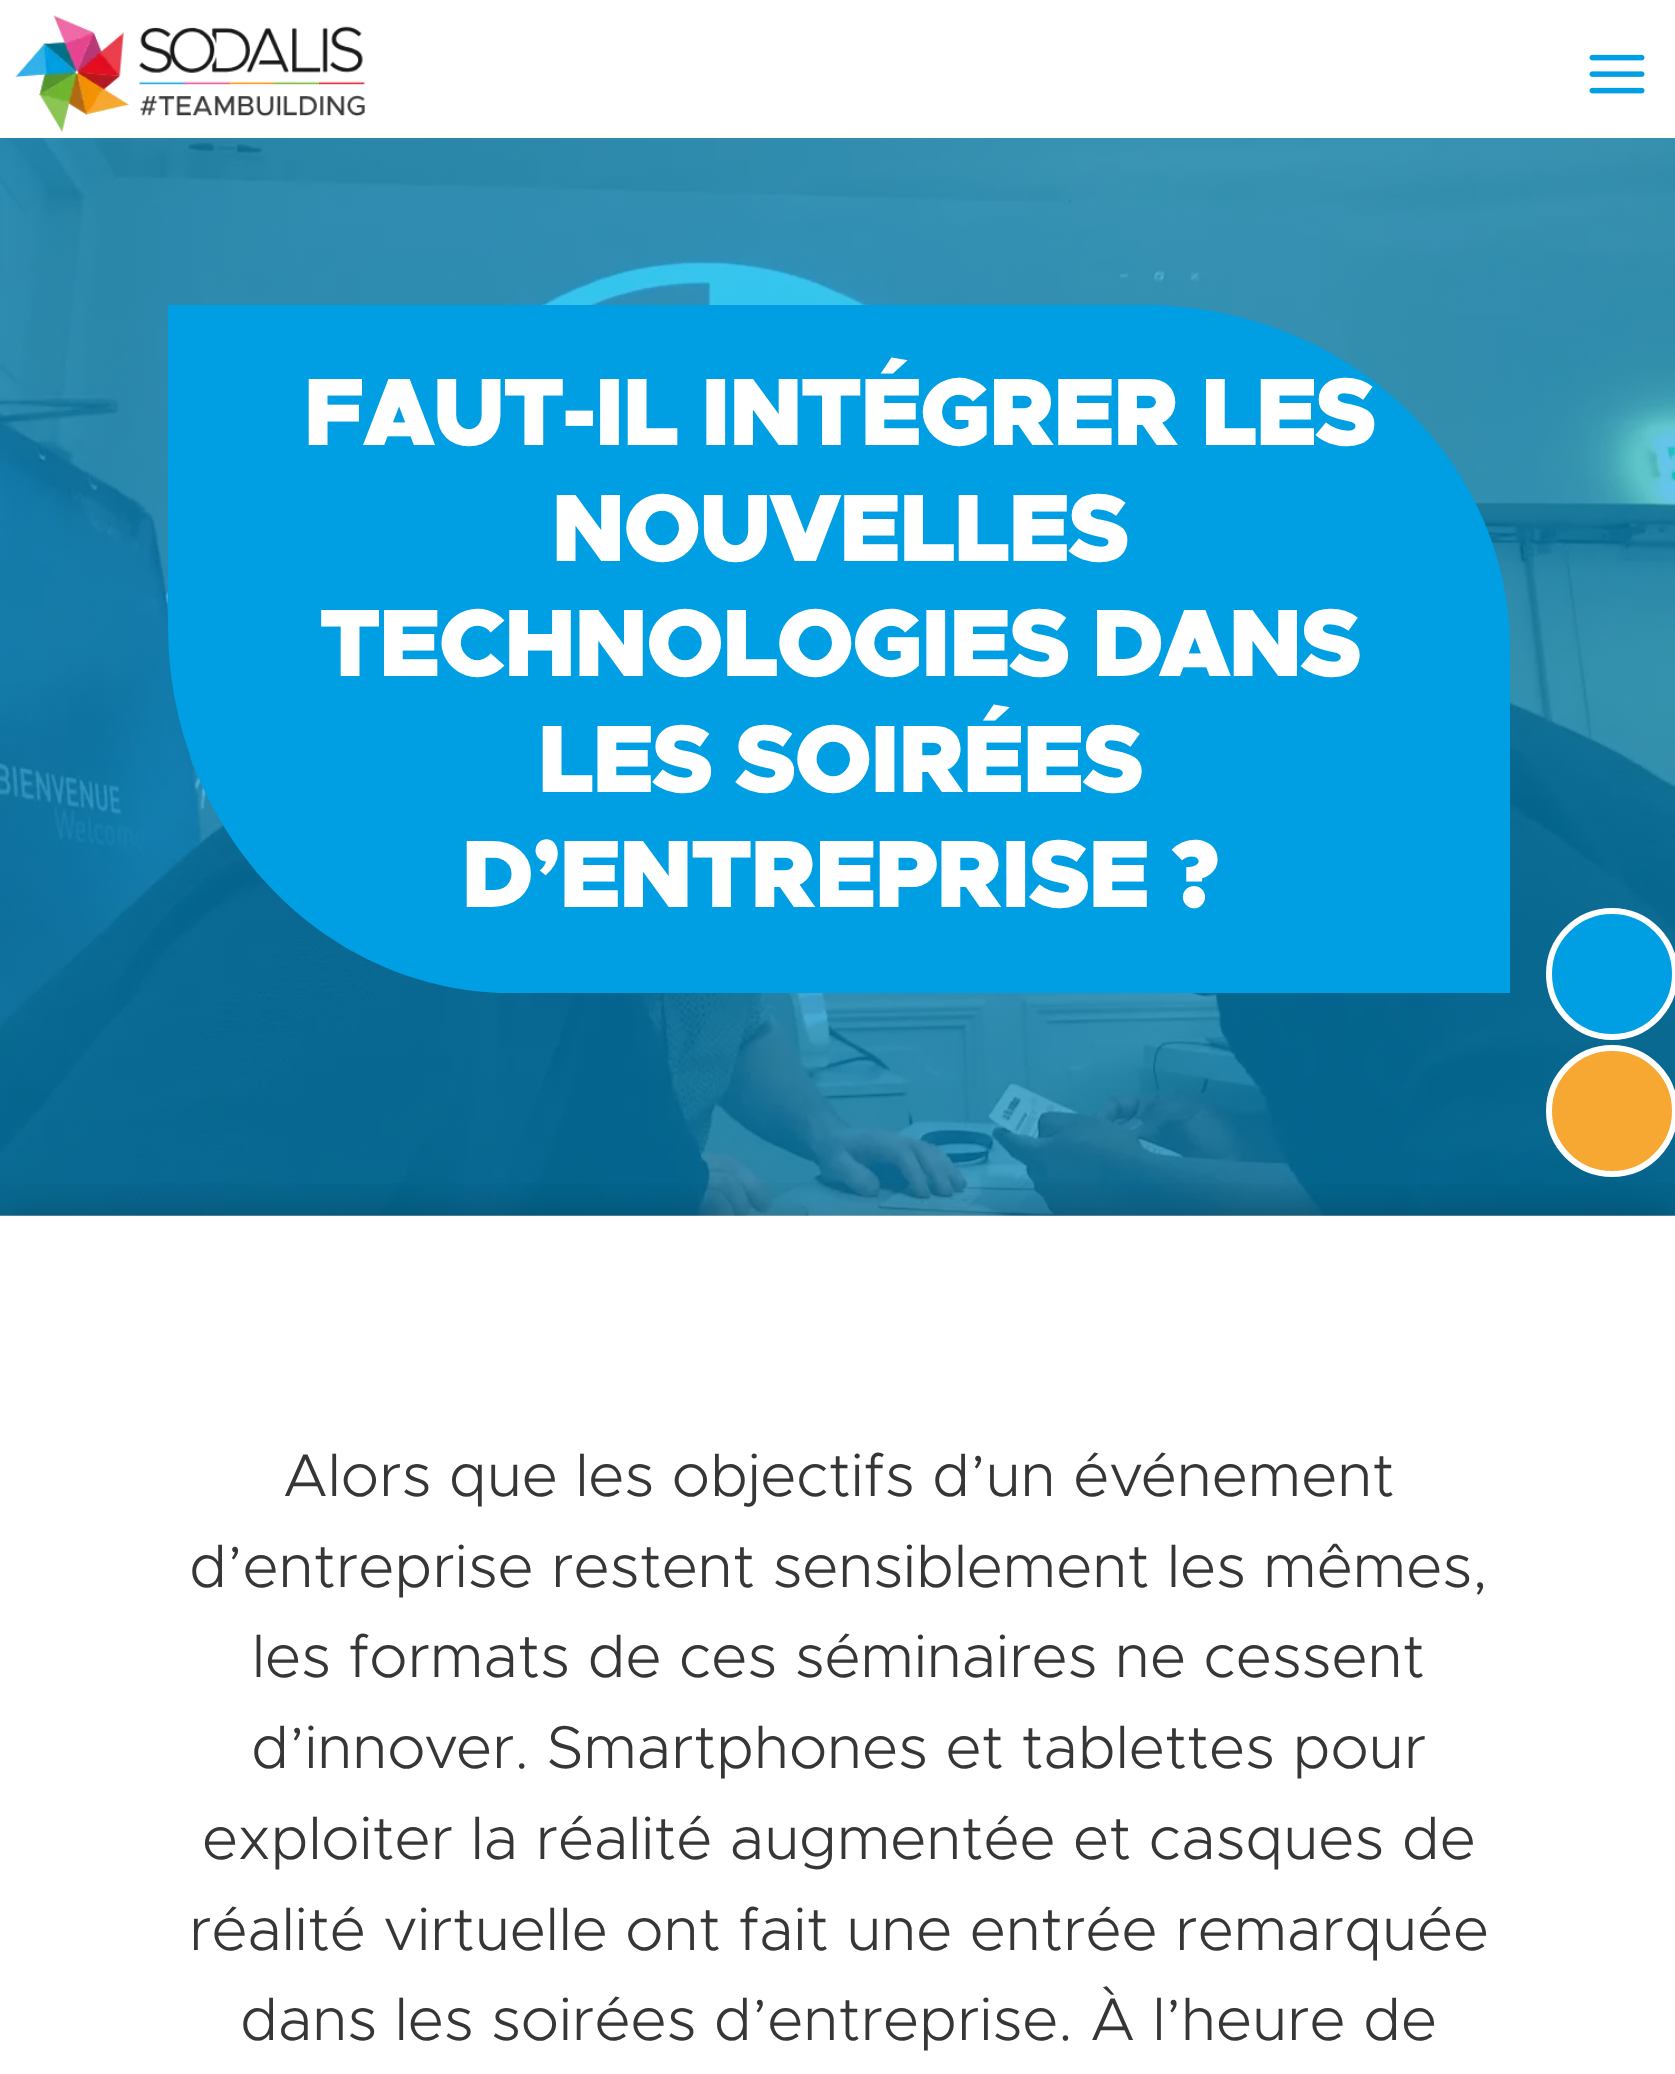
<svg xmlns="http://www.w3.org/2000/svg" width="1675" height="2074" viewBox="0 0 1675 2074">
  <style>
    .t1 { font: 900 96.25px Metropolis; letter-spacing: -2.75px; fill: #fff; }
    .t2 { font: 300 60.5px Metropolis; fill: #363636; }
  </style>
  <defs>
    <clipPath id="clip1"><rect x="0" y="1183" width="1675" height="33"/></clipPath>
  </defs>
  <rect width="100%" height="100%" fill="#fff"/>
  <image x="15" y="15" width="350" height="117" href="images/1.png"/>
  <image x="1589" y="54" width="56" height="40" href="images/2.png"/>
  <image x="0" y="138" width="1675" height="1078" href="images/3.png"/>
  <path d="M168 305H1143C1346 305 1510 459 1510 649V993H512C322 993 168 829 168 626Z" fill="#009fe3"/>
  <text x="303" y="445" class="t1">FAUT-IL INTÉGRER LES</text>
  <text x="551" y="561" class="t1">NOUVELLES</text>
  <text x="319" y="676" class="t1">TECHNOLOGIES DANS</text>
  <text x="537" y="792" class="t1">LES SOIRÉES</text>
  <text x="461" y="907" class="t1">D’ENTREPRISE ?</text>
  <g clip-path="url(#clip1)">
    <rect x="0" y="1221" width="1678" height="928" fill="#0000004d" filter="blur(25px)"/>
  </g>
  <text x="283" y="1496" class="t2">Alors que les objectifs d’un événement</text>
  <text x="189" y="1587" class="t2">d’entreprise restent sensiblement les mêmes,</text>
  <text x="252" y="1677" class="t2">les formats de ces séminaires ne cessent</text>
  <text x="251" y="1768" class="t2">d’innover. Smartphones et tablettes pour</text>
  <text x="202" y="1859" class="t2">exploiter la réalité augmentée et casques de</text>
  <text x="189" y="1950" class="t2">réalité virtuelle ont fait une entrée remarquée</text>
  <text x="240" y="2040" class="t2">dans les soirées d’entreprise. À l’heure de</text>
  <circle cx="1612" cy="974" r="63" fill="#009fe3" stroke="#fff" stroke-width="6"/>
  <circle cx="1612" cy="1111" r="63" fill="#f6a833" stroke="#fff" stroke-width="6"/>
</svg>
